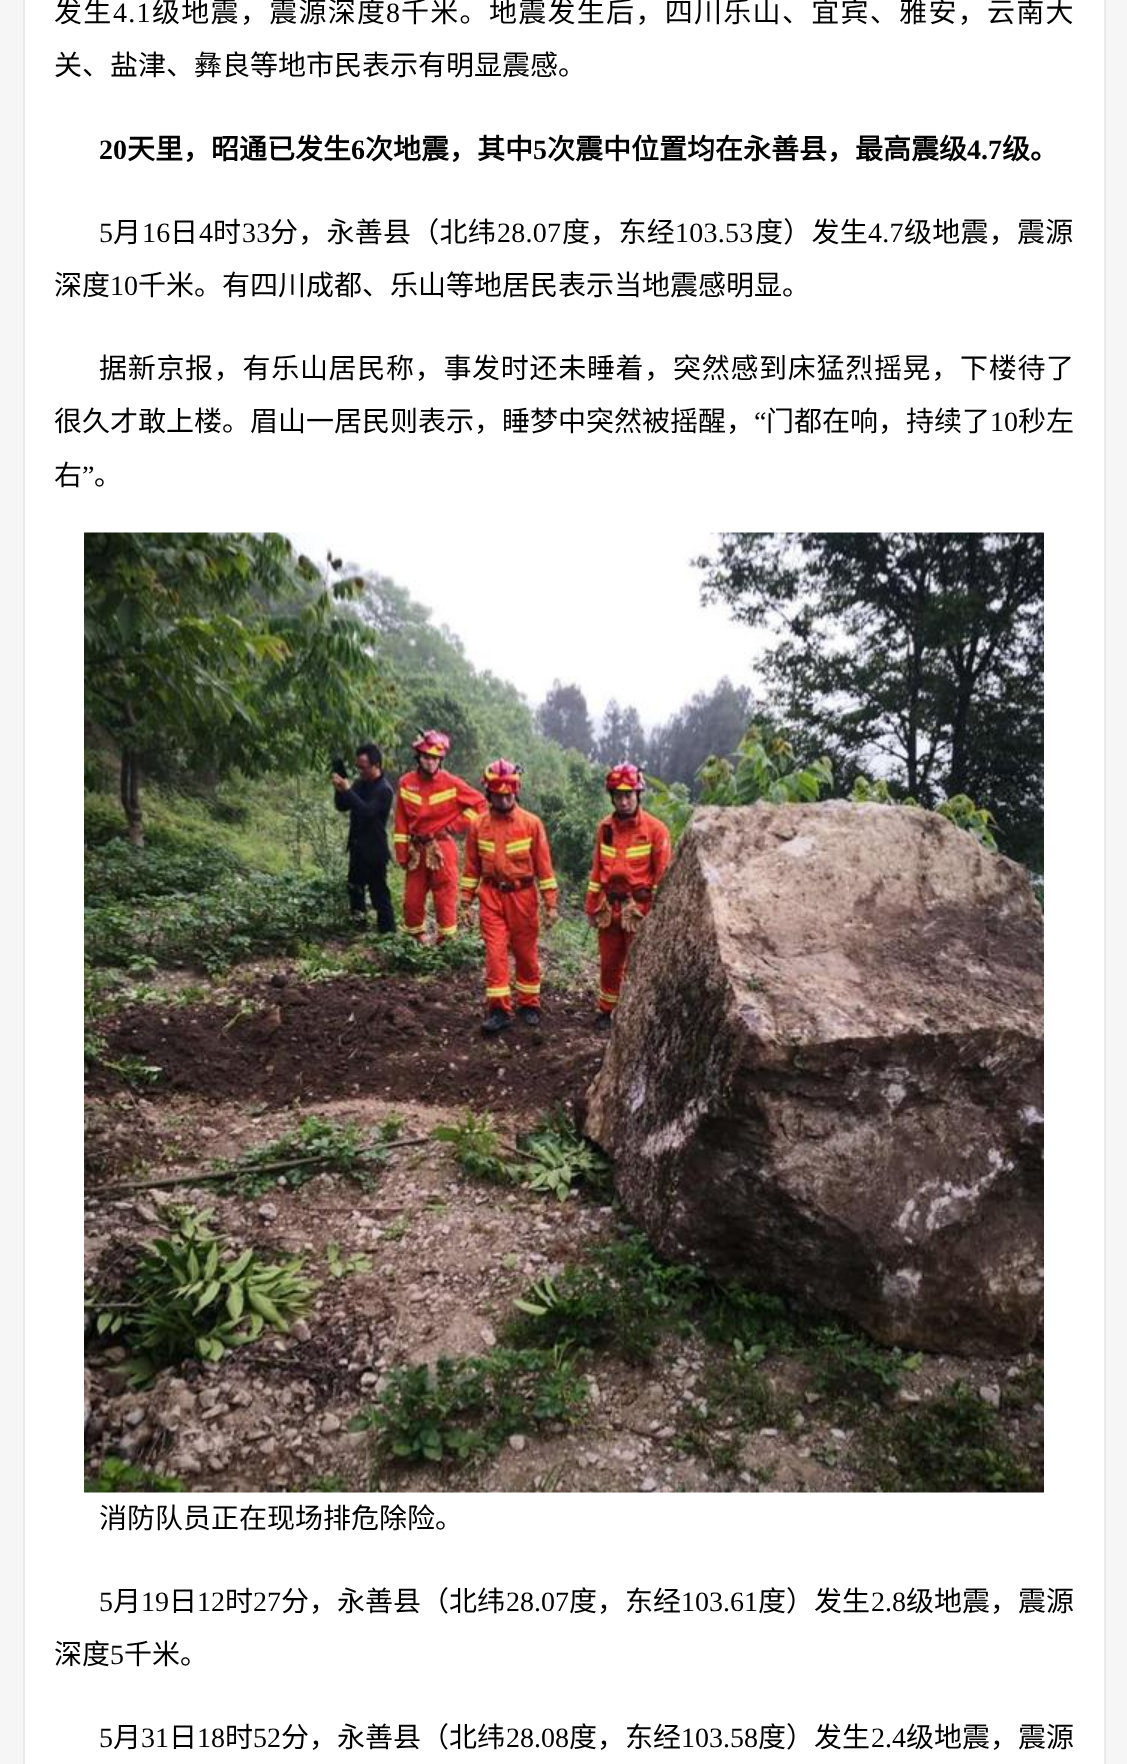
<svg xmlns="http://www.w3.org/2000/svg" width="1127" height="1764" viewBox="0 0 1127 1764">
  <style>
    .t1 { font: 28px Noto Sans CJK SC; letter-spacing: 1.3px; fill: #000; }
    .t2 { font: 28px Liberation Serif; letter-spacing: 1.3px; fill: #000; }
    .t3 { font: 28px Noto Sans CJK SC; fill: #000; }
    .t4 { font: bold 28px Liberation Serif; fill: #000; }
    .t5 { font: bold 28px Noto Sans CJK SC; fill: #000; }
    .t6 { font: 28px Liberation Serif; letter-spacing: 0.25px; fill: #000; }
    .t7 { font: 28px Noto Sans CJK SC; letter-spacing: 0.25px; fill: #000; }
    .t8 { font: 28px Liberation Serif; fill: #000; }
    .t9 { font: 28px Noto Sans CJK SC; letter-spacing: 0.7px; fill: #000; }
  </style>
  <rect width="100%" height="100%" fill="#f6f6f6"/>
  <rect x="24" y="-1" width="1081" height="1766" fill="#fff" stroke="#eaeaea" stroke-width="2"/>
  <text x="54" y="22" class="t1">发生</text>
  <text x="113" y="22" class="t2">4.1</text>
  <text x="152" y="22" class="t1">级地震，震源深度</text>
  <text x="386" y="22" class="t2">8</text>
  <text x="401" y="22" class="t1">千米。地震发生后，四川乐山、宜宾、雅安，云南大</text>
  <text x="54" y="75" class="t3">关、盐津、彝良等地市民表示有明显震感。</text>
  <text x="99" y="159" class="t4">20</text>
  <text x="127" y="159" class="t5">天里，昭通已发生</text>
  <text x="351" y="159" class="t4">6</text>
  <text x="365" y="159" class="t5">次地震，其中</text>
  <text x="533" y="159" class="t4">5</text>
  <text x="547" y="159" class="t5">次震中位置均在永善县，最高震级</text>
  <text x="967" y="159" class="t4">4.7</text>
  <text x="1002" y="159" class="t5">级。</text>
  <text x="99" y="242" class="t6">5</text>
  <text x="113" y="242" class="t7">月</text>
  <text x="142" y="242" class="t6">16</text>
  <text x="170" y="242" class="t7">日</text>
  <text x="199" y="242" class="t6">4</text>
  <text x="213" y="242" class="t7">时</text>
  <text x="242" y="242" class="t6">33</text>
  <text x="270" y="242" class="t7">分，永善县（北纬</text>
  <text x="497" y="242" class="t6">28.07</text>
  <text x="562" y="242" class="t7">度，东经</text>
  <text x="675" y="242" class="t6">103.53</text>
  <text x="755" y="242" class="t7">度）发生</text>
  <text x="868" y="242" class="t6">4.7</text>
  <text x="904" y="242" class="t7">级地震，震源</text>
  <text x="54" y="295" class="t3">深度</text>
  <text x="110" y="295" class="t8">10</text>
  <text x="138" y="295" class="t3">千米。有四川成都、乐山等地居民表示当地震感明显。</text>
  <text x="99" y="378" class="t9">据新京报，有乐山居民称，事发时还未睡着，突然感到床猛烈摇晃，下楼待了</text>
  <text x="54" y="431" class="t3">很久才敢上楼。眉山一居民则表示，睡梦中突然被摇醒，</text>
  <text x="754" y="431" class="t8">“</text>
  <text x="766" y="431" class="t3">门都在响，持续了</text>
  <text x="990" y="431" class="t8">10</text>
  <text x="1018" y="431" class="t3">秒左</text>
  <text x="54" y="485" class="t3">右</text>
  <text x="82" y="485" class="t8">”</text>
  <text x="94" y="485" class="t3">。</text>
  <image x="84" y="532" width="960" height="961" href="images/1.png"/>
  <text x="99" y="1528" class="t3">消防队员正在现场排危除险。</text>
  <text x="99" y="1611" class="t8">5</text>
  <text x="113" y="1611" class="t3">月</text>
  <text x="141" y="1611" class="t8">19</text>
  <text x="169" y="1611" class="t3">日</text>
  <text x="197" y="1611" class="t8">12</text>
  <text x="225" y="1611" class="t3">时</text>
  <text x="253" y="1611" class="t8">27</text>
  <text x="281" y="1611" class="t3">分，永善县（北纬</text>
  <text x="506" y="1611" class="t8">28.07</text>
  <text x="569" y="1611" class="t3">度，东经</text>
  <text x="681" y="1611" class="t8">103.61</text>
  <text x="758" y="1611" class="t3">度）发生</text>
  <text x="871" y="1611" class="t8">2.8</text>
  <text x="906" y="1611" class="t3">级地震，震源</text>
  <text x="54" y="1664" class="t3">深度</text>
  <text x="110" y="1664" class="t8">5</text>
  <text x="124" y="1664" class="t3">千米。</text>
  <text x="99" y="1747" class="t8">5</text>
  <text x="113" y="1747" class="t3">月</text>
  <text x="141" y="1747" class="t8">31</text>
  <text x="169" y="1747" class="t3">日</text>
  <text x="197" y="1747" class="t8">18</text>
  <text x="225" y="1747" class="t3">时</text>
  <text x="253" y="1747" class="t8">52</text>
  <text x="281" y="1747" class="t3">分，永善县（北纬</text>
  <text x="506" y="1747" class="t8">28.08</text>
  <text x="569" y="1747" class="t3">度，东经</text>
  <text x="681" y="1747" class="t8">103.58</text>
  <text x="758" y="1747" class="t3">度）发生</text>
  <text x="871" y="1747" class="t8">2.4</text>
  <text x="906" y="1747" class="t3">级地震，震源</text>
</svg>
